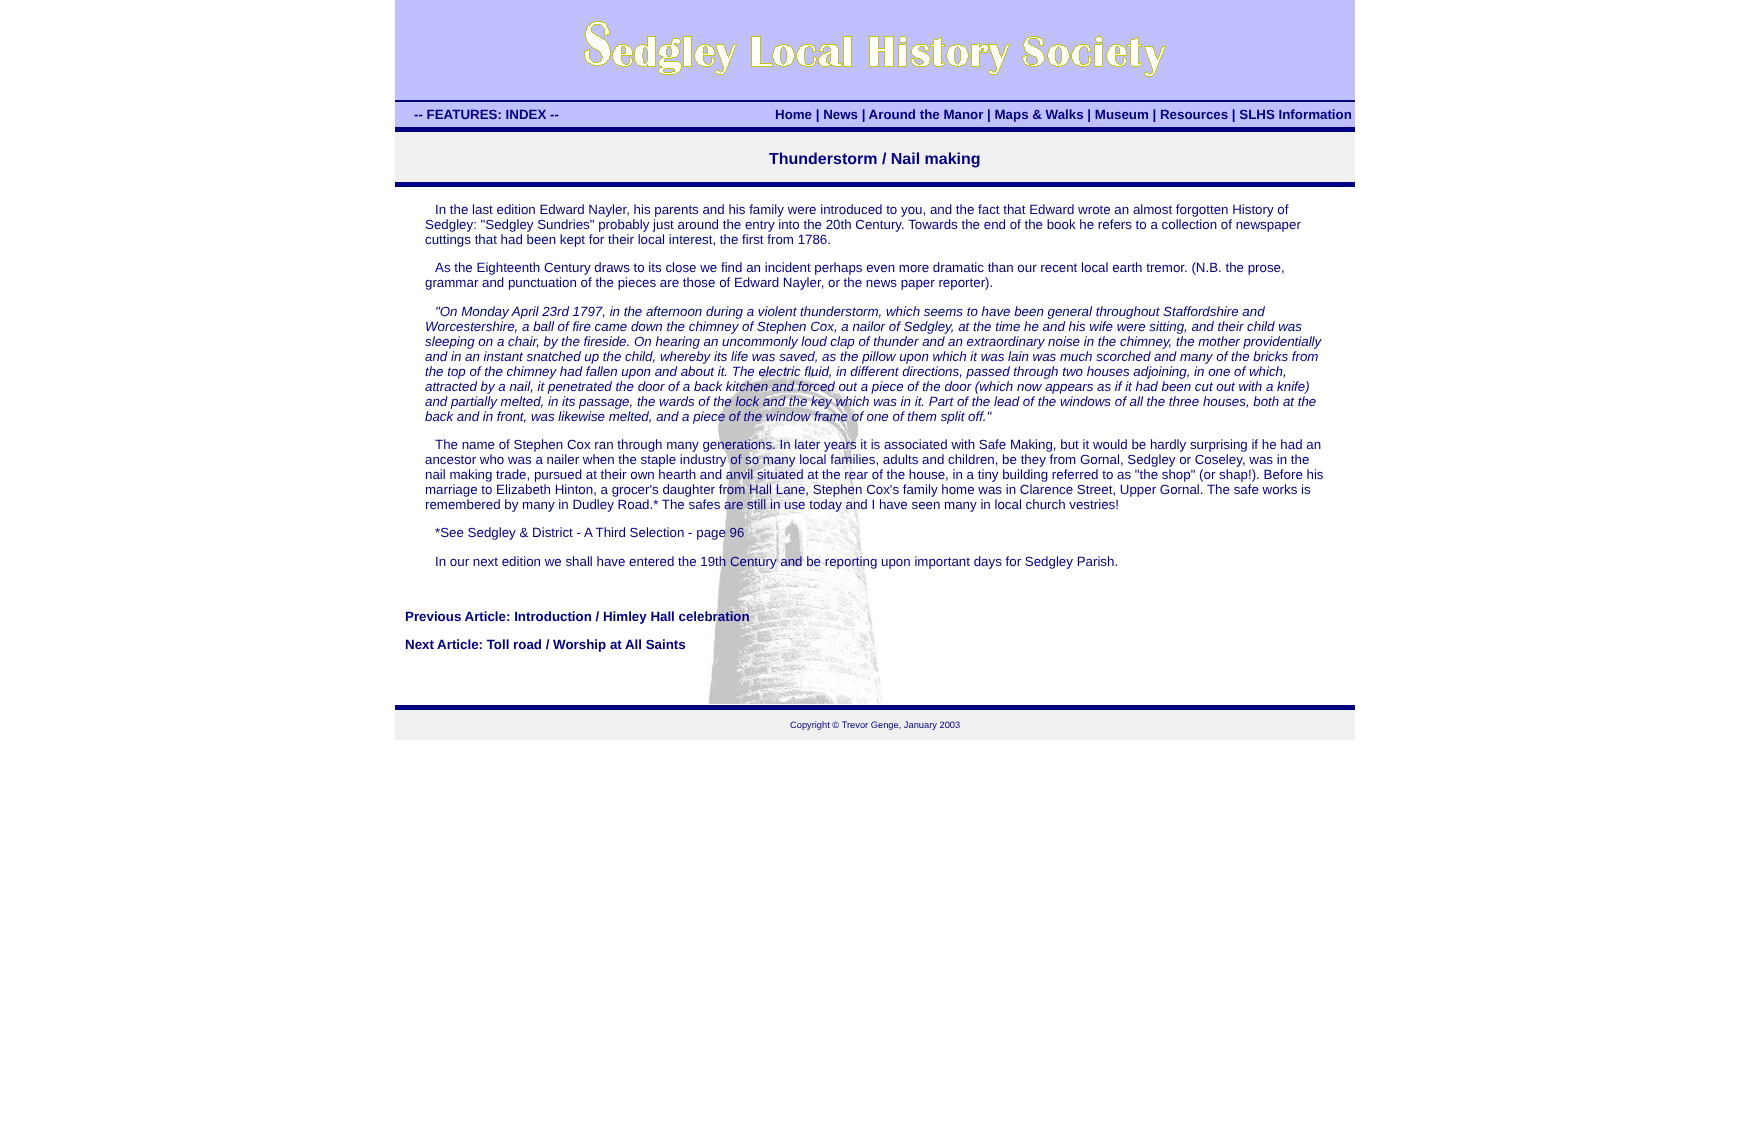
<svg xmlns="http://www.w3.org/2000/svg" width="1750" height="1132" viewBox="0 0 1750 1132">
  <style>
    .t1 { font: bold 13.33px Liberation Sans; fill: #000080; }
    .t2 { font: bold 16px Liberation Sans; fill: #000080; }
    .t3 { font: 13.33px Liberation Sans; fill: #000080; }
    .t4 { font: italic 13.33px Liberation Sans; fill: #000080; }
    .t5 { font: 9.3px Liberation Sans; fill: #000080; }
  </style>
  <rect width="100%" height="100%" fill="#fff"/>
  <rect x="395" y="0" width="960" height="100" fill="#c0c0ff"/>
  <image x="584" y="21" width="582" height="56" href="images/1.png"/>
  <rect x="395" y="102" width="960" height="25" fill="#c0c0ff"/>
  <rect x="395" y="100" width="960" height="2" fill="#000080"/>
  <rect x="395" y="127" width="960" height="5" fill="#000080"/>
  <text x="414" y="119" class="t1">-- FEATURES: INDEX --</text>
  <text x="775" y="119" class="t1">Home | News | Around the Manor | Maps &amp; Walks | Museum | Resources | SLHS Information</text>
  <rect x="395" y="132" width="960" height="50" fill="#f0f0f0"/>
  <rect x="395" y="182" width="960" height="5" fill="#000080"/>
  <text x="769" y="164" class="t2">Thunderstorm / Nail making</text>
  <image x="707" y="363" width="176" height="342" href="images/2.png"/>
  <text x="435" y="214" class="t3">In the last edition Edward Nayler, his parents and his family were introduced to you, and the fact that Edward wrote an almost forgotten History of</text>
  <text x="425" y="229" class="t3">Sedgley: "Sedgley Sundries" probably just around the entry into the 20th Century. Towards the end of the book he refers to a collection of newspaper</text>
  <text x="425" y="244" class="t3">cuttings that had been kept for their local interest, the first from 1786.</text>
  <text x="435" y="272" class="t3">As the Eighteenth Century draws to its close we find an incident perhaps even more dramatic than our recent local earth tremor. (N.B. the prose,</text>
  <text x="425" y="287" class="t3">grammar and punctuation of the pieces are those of Edward Nayler, or the news paper reporter).</text>
  <text x="435" y="316" class="t4">"On Monday April 23rd 1797, in the afternoon during a violent thunderstorm, which seems to have been general throughout Staffordshire and</text>
  <text x="425" y="331" class="t4">Worcestershire, a ball of fire came down the chimney of Stephen Cox, a nailor of Sedgley, at the time he and his wife were sitting, and their child was</text>
  <text x="425" y="346" class="t4">sleeping on a chair, by the fireside. On hearing an uncommonly loud clap of thunder and an extraordinary noise in the chimney, the mother providentially</text>
  <text x="425" y="361" class="t4">and in an instant snatched up the child, whereby its life was saved, as the pillow upon which it was lain was much scorched and many of the bricks from</text>
  <text x="425" y="376" class="t4">the top of the chimney had fallen upon and about it. The electric fluid, in different directions, passed through two houses adjoining, in one of which,</text>
  <text x="425" y="391" class="t4">attracted by a nail, it penetrated the door of a back kitchen and forced out a piece of the door (which now appears as if it had been cut out with a knife)</text>
  <text x="425" y="406" class="t4">and partially melted, in its passage, the wards of the lock and the key which was in it. Part of the lead of the windows of all the three houses, both at the</text>
  <text x="425" y="421" class="t4">back and in front, was likewise melted, and a piece of the window frame of one of them split off."</text>
  <text x="435" y="449" class="t3">The name of Stephen Cox ran through many generations. In later years it is associated with Safe Making, but it would be hardly surprising if he had an</text>
  <text x="425" y="464" class="t3">ancestor who was a nailer when the staple industry of so many local families, adults and children, be they from Gornal, Sedgley or Coseley, was in the</text>
  <text x="425" y="479" class="t3">nail making trade, pursued at their own hearth and anvil situated at the rear of the house, in a tiny building referred to as "the shop" (or shap!). Before his</text>
  <text x="425" y="494" class="t3">marriage to Elizabeth Hinton, a grocer's daughter from Hall Lane, Stephen Cox's family home was in Clarence Street, Upper Gornal. The safe works is</text>
  <text x="425" y="509" class="t3">remembered by many in Dudley Road.* The safes are still in use today and I have seen many in local church vestries!</text>
  <text x="435" y="537" class="t3">*See Sedgley &amp; District - A Third Selection - page 96</text>
  <text x="435" y="566" class="t3">In our next edition we shall have entered the 19th Century and be reporting upon important days for Sedgley Parish.</text>
  <text x="405" y="621" class="t1">Previous Article: Introduction / Himley Hall celebration</text>
  <text x="405" y="649" class="t1">Next Article: Toll road / Worship at All Saints</text>
  <rect x="395" y="710" width="960" height="30" fill="#f0f0f0"/>
  <rect x="395" y="705" width="960" height="5" fill="#000080"/>
  <text x="790" y="728" class="t5">Copyright © Trevor Genge, January 2003</text>
</svg>
